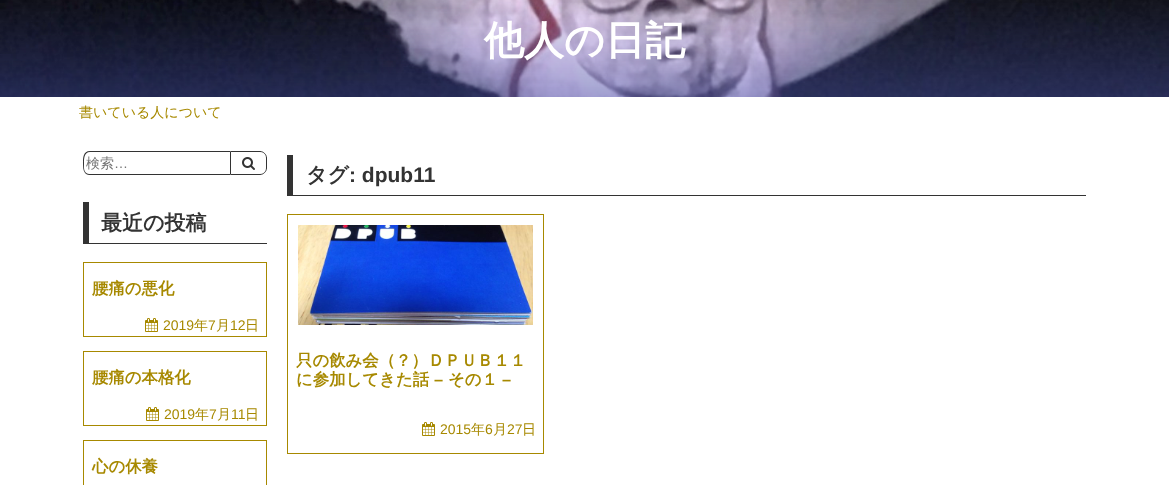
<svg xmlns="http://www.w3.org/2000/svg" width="1169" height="485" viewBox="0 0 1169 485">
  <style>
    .t1 { font: bold 40px WenQuanYi Zen Hei; fill: #fff; }
    .t2 { font: 500 14px WenQuanYi Zen Hei; fill: #a78900; }
    .t3 { font: 500 14px WenQuanYi Zen Hei; fill: #757575; }
    .t4 { font: 14px Liberation Sans; fill: #757575; }
    .t5 { font: bold 21px WenQuanYi Zen Hei; fill: #333; }
    .t6 { font: bold 16.4px WenQuanYi Zen Hei; fill: #a78900; }
    .t7 { font: 14px Liberation Sans; fill: #a78900; }
    .t8 { font: bold 21px Liberation Sans; fill: #333; }
    .t9 { font: bold 16.4px Liberation Sans; fill: #a78900; }
  </style>
  <rect width="100%" height="100%" fill="#fff"/>
  <image x="0" y="0" width="1169" height="97" href="images/1.png"/>
  <text x="484" y="54" class="t1">他人の日記</text>
  <text x="79" y="117" class="t2">書いている人について</text>
  <path d="M90 151H230V175H89C83 174 83 168 83 163C83 158 83 151 90 151ZM90 152H230V174H89C83 173 84 167 84 163C84 159 84 152 90 152Z" fill="#333" fill-rule="evenodd"/>
  <text x="86" y="168" class="t3">検索</text>
  <text x="114" y="168" class="t4">…</text>
  <path d="M230.5 151.5H260C263.5 151.5 266.5 154.5 266.5 158V168C266.5 171.5 263.5 174.5 260 174.5H230.5Z" fill="none" stroke="#333"/>
  <image x="242" y="157" width="13" height="13" href="images/2.png"/>
  <rect x="83" y="243" width="184" height="1" fill="#333"/>
  <rect x="83" y="202" width="6" height="42" fill="#333"/>
  <text x="101" y="230" class="t5">最近の投稿</text>
  <rect x="83.5" y="262.5" width="183" height="74" fill="none" stroke="#a78900"/>
  <text x="92" y="294" class="t6">腰痛の悪化</text>
  <image x="145" y="318" width="13" height="14" href="images/3.png"/>
  <text x="163" y="330" class="t7">2019</text>
  <text x="194" y="330" class="t2">年</text>
  <text x="208" y="330" class="t7">7</text>
  <text x="216" y="330" class="t2">月</text>
  <text x="230" y="330" class="t7">12</text>
  <text x="245" y="330" class="t2">日</text>
  <rect x="83.5" y="351.5" width="183" height="74" fill="none" stroke="#a78900"/>
  <text x="92" y="383" class="t6">腰痛の本格化</text>
  <image x="146" y="407" width="13" height="14" href="images/3.png"/>
  <text x="164" y="419" class="t7">2019</text>
  <text x="195" y="419" class="t2">年</text>
  <text x="209" y="419" class="t7">7</text>
  <text x="217" y="419" class="t2">月</text>
  <text x="231" y="419" class="t7">11</text>
  <text x="245" y="419" class="t2">日</text>
  <rect x="83.5" y="440.5" width="183" height="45" fill="none" stroke="#a78900"/>
  <text x="92" y="472" class="t6">心の休養</text>
  <rect x="287" y="195" width="799" height="1" fill="#333"/>
  <rect x="287" y="155" width="6" height="41" fill="#333"/>
  <text x="306" y="182" class="t5">タグ</text>
  <text x="349" y="182" class="t8">: dpub11</text>
  <rect x="287.5" y="214.5" width="256" height="239" fill="none" stroke="#a78900"/>
  <image x="298" y="225" width="235" height="100" href="images/4.png"/>
  <text x="296" y="366" class="t6">只の飲み会（？）ＤＰＵＢ１１</text>
  <text x="296" y="385" class="t6">に参加してきた話</text>
  <text x="434" y="385" class="t9">–</text>
  <text x="448" y="385" class="t6">その１</text>
  <text x="502" y="385" class="t9">–</text>
  <image x="422" y="422" width="13" height="14" href="images/3.png"/>
  <text x="440" y="434" class="t7">2015</text>
  <text x="471" y="434" class="t2">年</text>
  <text x="485" y="434" class="t7">6</text>
  <text x="493" y="434" class="t2">月</text>
  <text x="507" y="434" class="t7">27</text>
  <text x="522" y="434" class="t2">日</text>
</svg>
